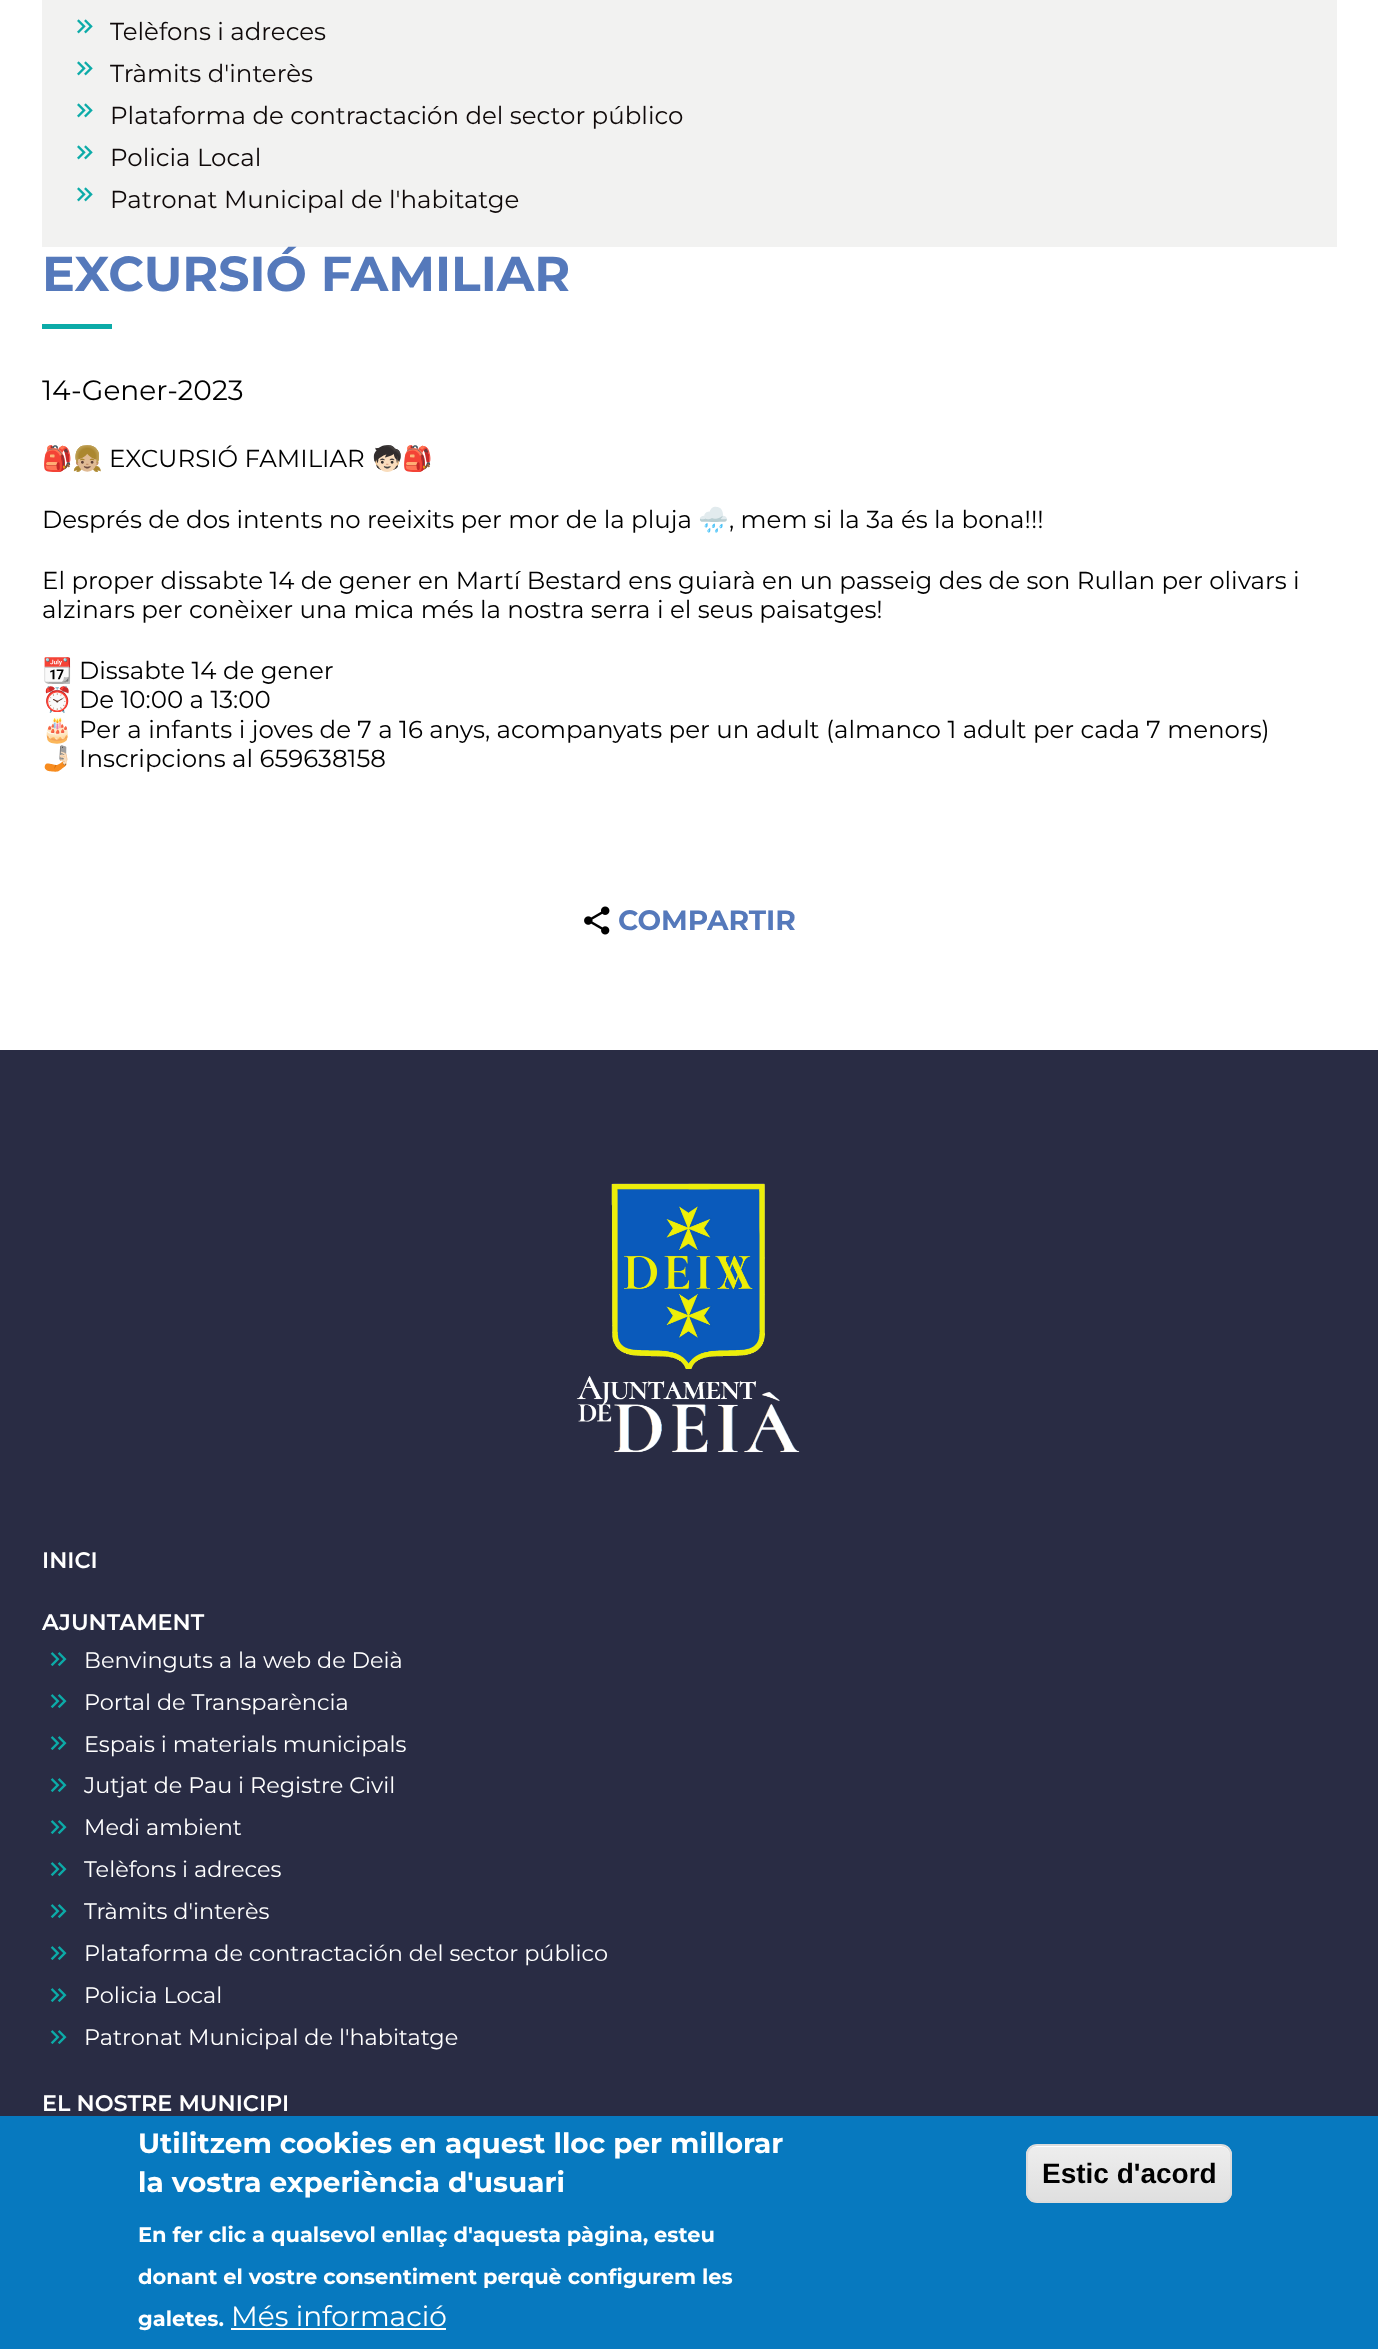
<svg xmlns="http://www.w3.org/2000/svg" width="1378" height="2349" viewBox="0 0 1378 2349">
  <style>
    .t1 { font: 24.5px Montserrat; fill: #0f0909; }
    .t2 { font: bold 49px Montserrat; fill: #5579bb; }
    .t3 { font: 28px Montserrat; fill: #000; }
    .t4 { font: 24.5px Noto Color Emoji; fill: #000; }
    .t5 { font: 24.5px Montserrat; fill: #000; }
    .t6 { font: bold 28px Montserrat; fill: #5579bb; }
    .t7 { font: 600 22.4px Montserrat; fill: #fff; }
    .t8 { font: 22.4px Montserrat; fill: #fff; }
    .t9 { font: bold 28px Montserrat; fill: #fff; }
    .t10 { font: bold 21px Montserrat; fill: #fff; }
    .t11 { font: 28px Montserrat; fill: #fff; }
    .t12 { font: bold 28px Liberation Sans; fill: #000; }
  </style>
  <defs>
    <clipPath id="clip1"><rect x="1026" y="2144" width="206" height="59" rx="11"/></clipPath>
    <linearGradient id="g1" gradientUnits="userSpaceOnUse" x1="1129" y1="2146" x2="1129" y2="2202"><stop offset="0.05" stop-color="#ededed"/><stop offset="1" stop-color="#dfdfdf"/></linearGradient>
  </defs>
  <rect width="100%" height="100%" fill="#fff"/>
  <rect x="42" y="0" width="1295" height="247" fill="#f2f2f1"/>
  <image x="77" y="19" width="16" height="15" href="images/1.png"/>
  <text x="110" y="40" class="t1">Telèfons i adreces</text>
  <image x="77" y="61" width="16" height="15" href="images/1.png"/>
  <text x="110" y="82" class="t1">Tràmits d'interès</text>
  <image x="77" y="103" width="16" height="15" href="images/1.png"/>
  <text x="110" y="124" class="t1">Plataforma de contractación del sector público</text>
  <image x="77" y="145" width="16" height="15" href="images/1.png"/>
  <text x="110" y="166" class="t1">Policia Local</text>
  <image x="77" y="187" width="16" height="15" href="images/1.png"/>
  <text x="110" y="208" class="t1">Patronat Municipal de l'habitatge</text>
  <text x="42" y="291" class="t2">EXCURSIÓ FAMILIAR</text>
  <rect x="42" y="324" width="70" height="5" fill="#0caba8"/>
  <text x="42" y="400" class="t3">14-Gener-2023</text>
  <text x="42" y="467" class="t4">🎒👧🏼</text>
  <text x="109" y="467" class="t5">EXCURSIÓ FAMILIAR</text>
  <text x="372" y="467" class="t4">🧒🏻🎒</text>
  <text x="42" y="528" class="t5">Després de dos intents no reeixits per mor de la pluja</text>
  <text x="698" y="528" class="t4">🌧️</text>
  <text x="729" y="528" class="t5">, mem si la 3a és la bona!!!</text>
  <text x="42" y="589" class="t5">El proper dissabte 14 de gener en Martí Bestard ens guiarà en un passeig des de son Rullan per olivars i</text>
  <text x="42" y="618" class="t5">alzinars per conèixer una mica més la nostra serra i el seus paisatges!</text>
  <text x="42" y="679" class="t4">📆</text>
  <text x="79" y="679" class="t5">Dissabte 14 de gener</text>
  <text x="42" y="708" class="t4">⏰</text>
  <text x="79" y="708" class="t5">De 10:00 a 13:00</text>
  <text x="42" y="738" class="t4">🎂</text>
  <text x="79" y="738" class="t5">Per a infants i joves de 7 a 16 anys, acompanyats per un adult (almanco 1 adult per cada 7 menors)</text>
  <text x="42" y="767" class="t4">🤳🏻</text>
  <text x="79" y="767" class="t5">Inscripcions al 659638158</text>
  <image x="584" y="906" width="26" height="29" href="images/2.png"/>
  <text x="618" y="930" class="t6">COMPARTIR</text>
  <rect x="0" y="1050" width="1378" height="1066" fill="#292c44"/>
  <image x="576" y="1183" width="224" height="270" href="images/3.png"/>
  <text x="42" y="1568" class="t7">INICI</text>
  <text x="42" y="1630" class="t7">AJUNTAMENT</text>
  <image x="50" y="1652" width="17" height="14" href="images/4.png"/>
  <text x="84" y="1668" class="t8">Benvinguts a la web de Deià</text>
  <image x="50" y="1694" width="17" height="14" href="images/4.png"/>
  <text x="84" y="1710" class="t8">Portal de Transparència</text>
  <image x="50" y="1736" width="17" height="14" href="images/4.png"/>
  <text x="84" y="1752" class="t8">Espais i materials municipals</text>
  <image x="50" y="1778" width="17" height="14" href="images/4.png"/>
  <text x="84" y="1793" class="t8">Jutjat de Pau i Registre Civil</text>
  <image x="50" y="1820" width="17" height="14" href="images/4.png"/>
  <text x="84" y="1835" class="t8">Medi ambient</text>
  <image x="50" y="1862" width="17" height="14" href="images/4.png"/>
  <text x="84" y="1877" class="t8">Telèfons i adreces</text>
  <image x="50" y="1904" width="17" height="14" href="images/4.png"/>
  <text x="84" y="1919" class="t8">Tràmits d'interès</text>
  <image x="50" y="1946" width="17" height="14" href="images/4.png"/>
  <text x="84" y="1961" class="t8">Plataforma de contractación del sector público</text>
  <image x="50" y="1988" width="17" height="14" href="images/4.png"/>
  <text x="84" y="2003" class="t8">Policia Local</text>
  <image x="50" y="2030" width="17" height="14" href="images/4.png"/>
  <text x="84" y="2045" class="t8">Patronat Municipal de l'habitatge</text>
  <text x="42" y="2111" class="t7">EL NOSTRE MUNICIPI</text>
  <rect x="0" y="2116" width="1378" height="233" fill="#0779bf"/>
  <text x="138" y="2153" class="t9">Utilitzem cookies en aquest lloc per millorar</text>
  <text x="138" y="2192" class="t9">la vostra experiència d'usuari</text>
  <text x="138" y="2242" class="t10">En fer clic a qualsevol enllaç d'aquesta pàgina, esteu</text>
  <text x="138" y="2284" class="t10">donant el vostre consentiment perquè configurem les</text>
  <text x="138" y="2326" class="t10">galetes.</text>
  <text x="231" y="2326" class="t11">Més informació</text>
  <rect x="231" y="2328" width="215" height="2" fill="#fff"/>
  <g clip-path="url(#clip1)">
    <rect x="1026" y="2146" width="206" height="56" fill="url(#g1)"/>
  </g>
  <path d="M1036 2147H1222C1226 2147 1230 2151 1230 2156V2155C1230 2150 1226 2146 1221 2146H1036C1031 2146 1027 2150 1027 2155V2156C1027 2151 1031 2147 1036 2147Z" fill="#fff"/>
  <rect x="1027" y="2145" width="204" height="57" rx="10" fill="none" stroke="#dcdcdc" stroke-width="2"/>
  <text x="1042" y="2183" class="t12">Estic d'acord</text>
</svg>
